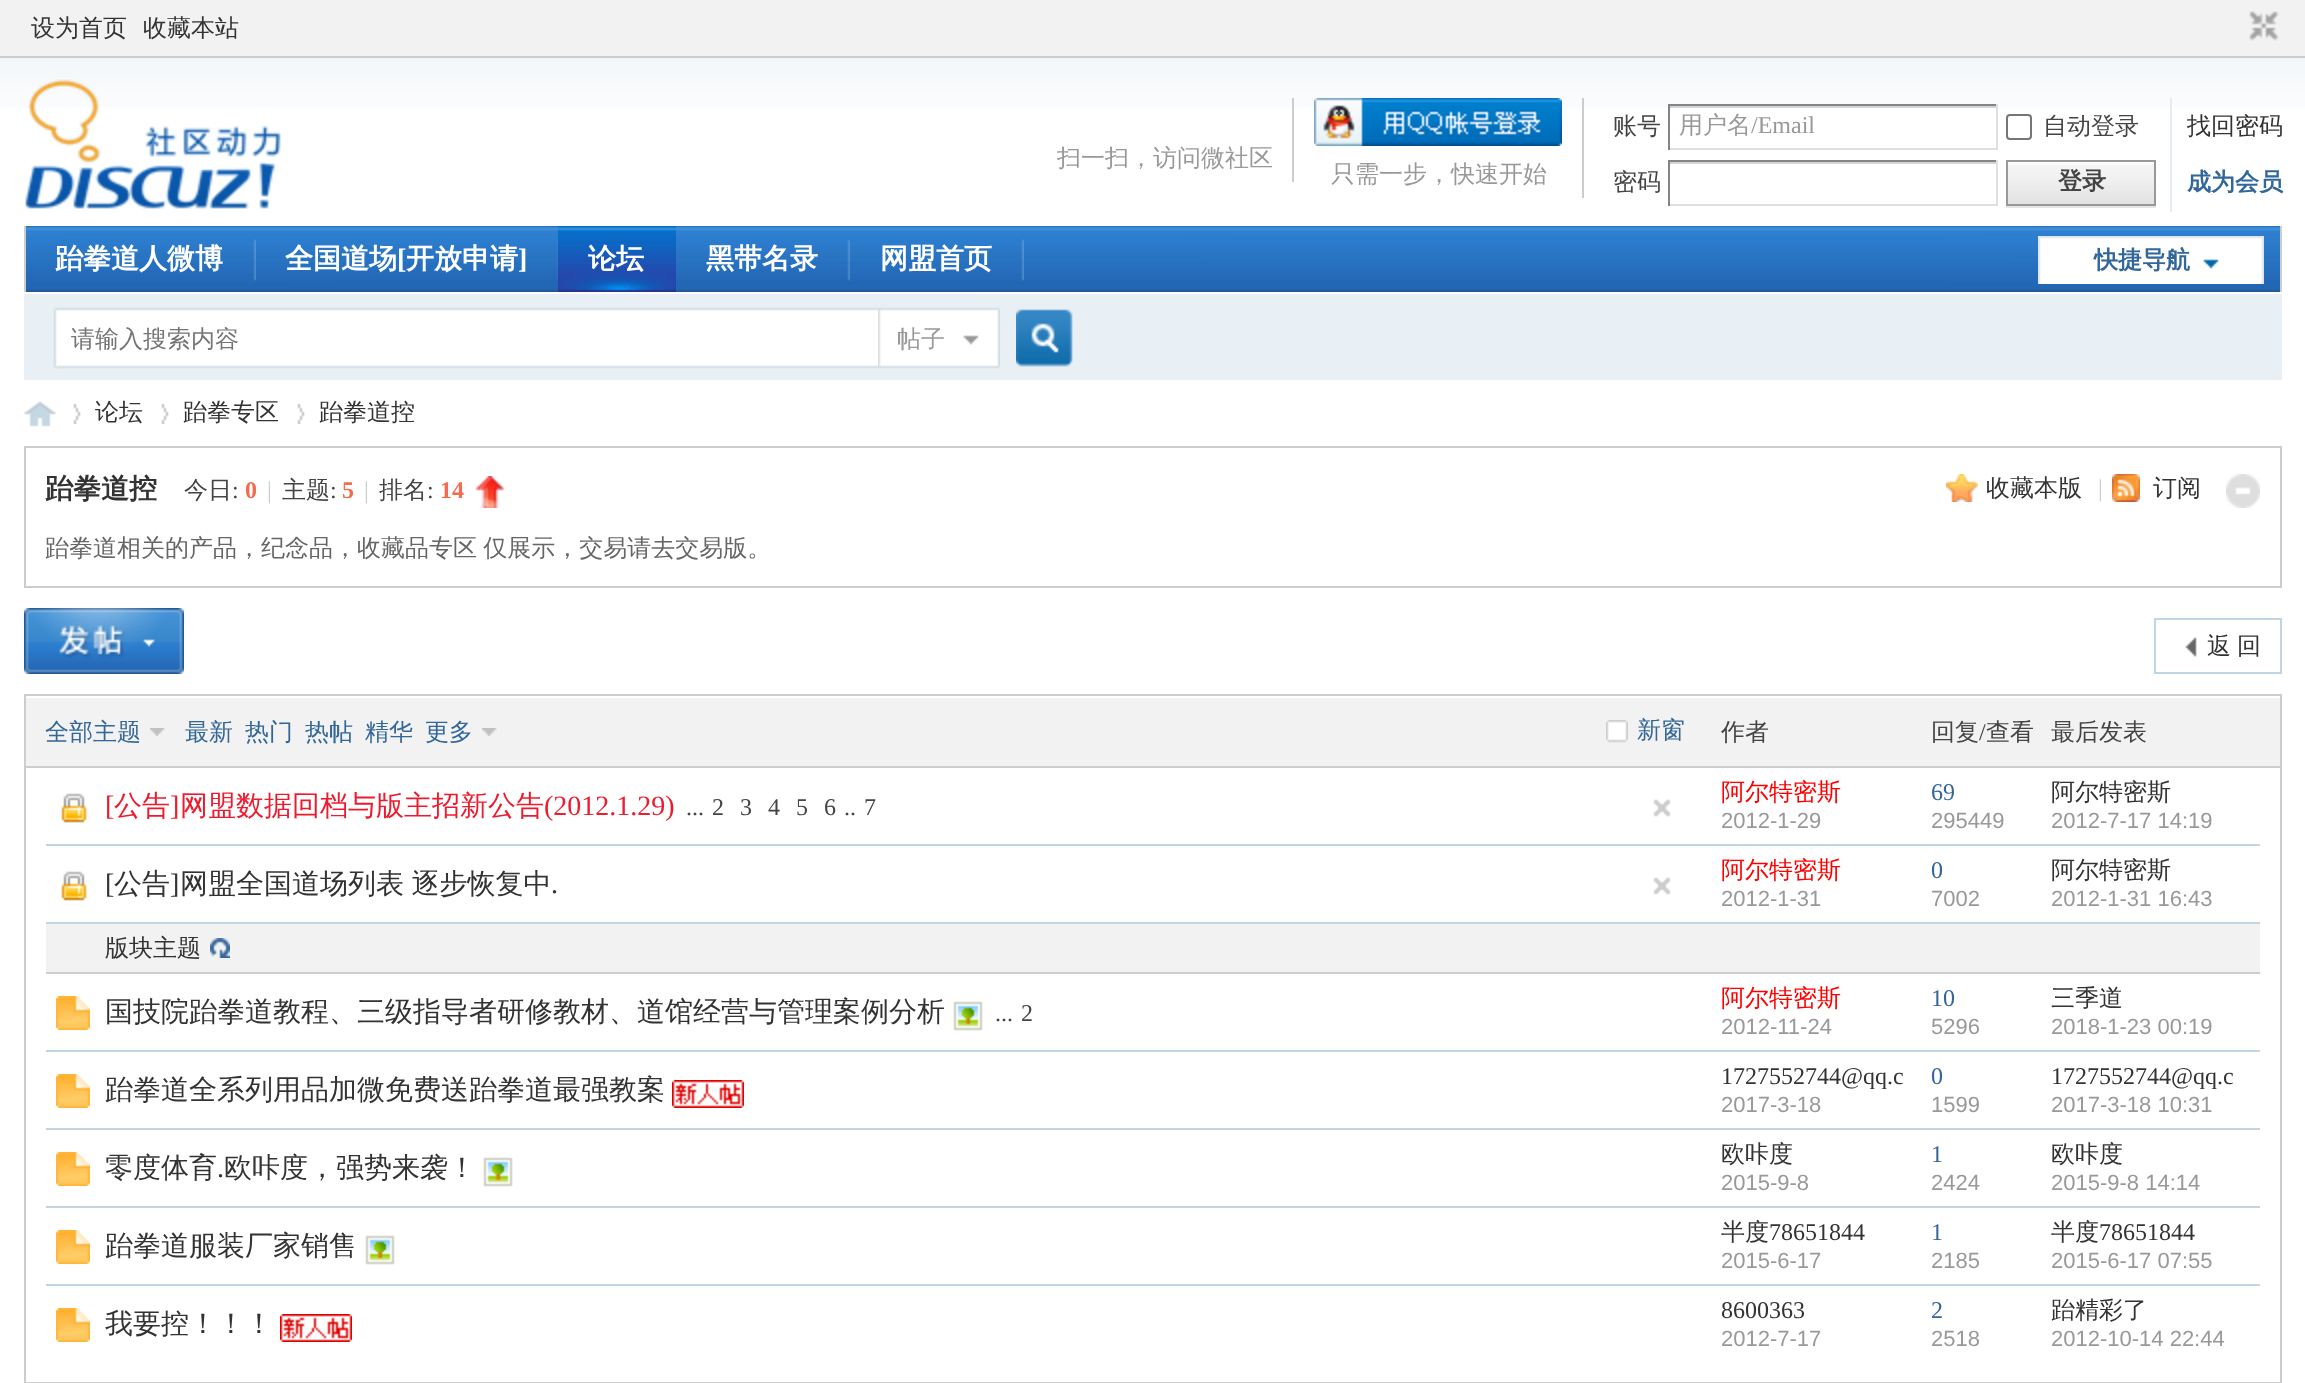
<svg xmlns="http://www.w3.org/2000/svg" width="2305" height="1383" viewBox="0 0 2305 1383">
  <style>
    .t1 { font: 500 24px WenQuanYi Zen Hei; fill: #333; }
    .t2 { font: 500 24px WenQuanYi Zen Hei; fill: #999; }
    .t3 { font: 500 24px WenQuanYi Zen Hei; fill: #444; }
    .t4 { font: 24px Liberation Serif; fill: #999; }
    .t5 { font: bold 24px WenQuanYi Zen Hei; fill: #444; }
    .t6 { font: bold 24px WenQuanYi Zen Hei; fill: #369; }
    .t7 { font: bold 28px WenQuanYi Zen Hei; fill: #fff; }
    .t8 { font: bold 28px Liberation Serif; fill: #fff; }
    .t9 { font: 500 24px WenQuanYi Zen Hei; fill: #757575; }
    .t10 { font: bold 28px WenQuanYi Zen Hei; fill: #333; }
    .t11 { font: 24px Liberation Serif; fill: #444; }
    .t12 { font: bold 24px Liberation Serif; fill: #f26c4f; }
    .t13 { font: 24px Liberation Serif; fill: #ccc; }
    .t14 { font: 500 24px WenQuanYi Zen Hei; fill: #666; }
    .t15 { font: 500 24px WenQuanYi Zen Hei; fill: #369; }
    .t16 { font: 28px Liberation Serif; fill: #ee1b2e; }
    .t17 { font: 500 28px WenQuanYi Zen Hei; fill: #ee1b2e; }
    .t18 { font: 500 24px WenQuanYi Zen Hei; fill: #f00; }
    .t19 { font: 22px Liberation Sans; fill: #999; }
    .t20 { font: 24px Liberation Serif; fill: #369; }
    .t21 { font: 28px Liberation Serif; fill: #333; }
    .t22 { font: 500 28px WenQuanYi Zen Hei; fill: #333; }
    .t23 { font: 24px Liberation Serif; fill: #333; }
  </style>
  <rect width="100%" height="100%" fill="#fff"/>
  <image x="0" y="58" width="2305" height="50" href="images/1.png"/>
  <rect x="0" y="0" width="2305" height="56" fill="#f2f2f2"/>
  <rect x="0" y="56" width="2305" height="2" fill="#cdcdcd"/>
  <text x="31" y="36" class="t1">设为首页</text>
  <text x="143" y="36" class="t1">收藏本站</text>
  <image x="2249" y="11" width="30" height="30" href="images/2.png"/>
  <image x="25" y="79" width="256" height="130" href="images/3.png"/>
  <rect x="1292" y="98" width="2" height="84" fill="#cdcdcd"/>
  <text x="1057" y="166" class="t2">扫一扫，访问微社区</text>
  <text x="1613" y="134" class="t3">账号</text>
  <rect x="1668" y="106" width="330" height="2" fill="#d4d4d4"/>
  <rect x="1668" y="104" width="330" height="2" fill="#848484"/>
  <rect x="1996" y="104" width="2" height="46" fill="#e0e0e0"/>
  <rect x="1668" y="148" width="330" height="2" fill="#e0e0e0"/>
  <rect x="1668" y="104" width="2" height="46" fill="#848484"/>
  <text x="1679" y="133" class="t2">用户名</text>
  <text x="1751" y="133" class="t4">/Email</text>
  <rect x="2007" y="115" width="24" height="24" rx="3" fill="none" stroke="#767676" stroke-width="2"/>
  <text x="2043" y="134" class="t3">自动登录</text>
  <text x="2187" y="134" class="t1">找回密码</text>
  <text x="1613" y="190" class="t3">密码</text>
  <rect x="1668" y="162" width="330" height="2" fill="#d4d4d4"/>
  <rect x="1668" y="160" width="330" height="2" fill="#848484"/>
  <rect x="1996" y="160" width="2" height="46" fill="#e0e0e0"/>
  <rect x="1668" y="204" width="330" height="2" fill="#e0e0e0"/>
  <rect x="1668" y="160" width="2" height="46" fill="#848484"/>
  <rect x="2170" y="98" width="2" height="114" fill="#e5edf2"/>
  <rect x="2006" y="206" width="150" height="2" fill="#e5e5e5"/>
  <image x="2008" y="162" width="146" height="42" href="images/4.png"/>
  <rect x="2007" y="161" width="148" height="44" fill="none" stroke="#999" stroke-width="2"/>
  <text x="2058" y="189" class="t5">登录</text>
  <text x="2187" y="190" class="t6">成为会员</text>
  <rect x="1582" y="98" width="2" height="100" fill="#cdcdcd"/>
  <image x="1314" y="98" width="248" height="48" href="images/5.png"/>
  <text x="1331" y="182" class="t2">只需一步，快速开始</text>
  <image x="26" y="226" width="2254" height="66" href="images/6.png"/>
  <rect x="2280" y="226" width="2" height="66" fill="#cdcdcd"/>
  <rect x="24" y="226" width="2" height="66" fill="#cdcdcd"/>
  <image x="253" y="239" width="3" height="42" href="images/7.png"/>
  <text x="55" y="268" class="t7">跆拳道人微博</text>
  <image x="557" y="239" width="1" height="42" href="images/8.png"/>
  <text x="285" y="268" class="t7">全国道场</text>
  <text x="397" y="268" class="t8">[</text>
  <text x="406" y="268" class="t7">开放申请</text>
  <text x="518" y="268" class="t8">]</text>
  <image x="558" y="226" width="118" height="66" href="images/9.png"/>
  <text x="588" y="268" class="t7">论坛</text>
  <image x="847" y="239" width="3" height="42" href="images/10.png"/>
  <text x="706" y="268" class="t7">黑带名录</text>
  <image x="1021" y="239" width="3" height="42" href="images/10.png"/>
  <text x="880" y="268" class="t7">网盟首页</text>
  <image x="2038" y="236" width="226" height="48" href="images/11.png"/>
  <text x="2094" y="268" class="t6">快捷导航</text>
  <rect x="24" y="294" width="2258" height="86" fill="#e8eff5"/>
  <image x="53" y="307" width="13" height="62" href="images/12.png"/>
  <image x="66" y="307" width="812" height="62" href="images/13.png"/>
  <text x="71" y="347" class="t9">请输入搜索内容</text>
  <image x="878" y="307" width="122" height="62" href="images/14.png"/>
  <text x="897" y="347" class="t2">帖子</text>
  <image x="1016" y="309" width="57" height="58" href="images/15.png"/>
  <image x="24" y="401" width="32" height="26" href="images/16.png"/>
  <image x="73" y="404" width="8" height="20" href="images/17.png"/>
  <text x="95" y="420" class="t1">论坛</text>
  <image x="161" y="404" width="8" height="20" href="images/17.png"/>
  <text x="183" y="420" class="t1">跆拳专区</text>
  <image x="297" y="404" width="8" height="20" href="images/17.png"/>
  <text x="319" y="420" class="t1">跆拳道控</text>
  <rect x="25" y="447" width="2256" height="140" fill="none" stroke="#cdcdcd" stroke-width="2"/>
  <text x="45" y="498" class="t10">跆拳道控</text>
  <text x="184" y="498" class="t3">今日</text>
  <text x="232" y="498" class="t11">:</text>
  <text x="245" y="498" class="t12">0</text>
  <text x="267" y="498" class="t13">|</text>
  <text x="282" y="498" class="t3">主题</text>
  <text x="330" y="498" class="t11">:</text>
  <text x="342" y="498" class="t12">5</text>
  <text x="364" y="498" class="t13">|</text>
  <text x="379" y="498" class="t3">排名</text>
  <text x="427" y="498" class="t11">:</text>
  <text x="440" y="498" class="t12">14</text>
  <image x="475" y="476" width="30" height="32" href="images/18.png"/>
  <image x="1946" y="474" width="32" height="28" href="images/19.png"/>
  <text x="1986" y="496" class="t1">收藏本版</text>
  <text x="2098" y="496" class="t13">|</text>
  <image x="2112" y="474" width="28" height="28" href="images/20.png"/>
  <text x="2153" y="496" class="t1">订阅</text>
  <image x="2226" y="474" width="34" height="34" href="images/21.png"/>
  <text x="45" y="556" word-spacing="-1" class="t14">跆拳道相关的产品，纪念品，收藏品专区 仅展示，交易请去交易版。</text>
  <image x="24" y="608" width="160" height="66" href="images/22.png"/>
  <image x="2185" y="637" width="12" height="20" href="images/23.png"/>
  <rect x="2155" y="619" width="126" height="54" fill="none" stroke="#c2d5e3" stroke-width="2"/>
  <text x="2207" y="654" class="t1">返</text>
  <text x="2237" y="654" class="t1">回</text>
  <rect x="25" y="695" width="2256" height="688" fill="none" stroke="#cdcdcd" stroke-width="2"/>
  <rect x="26" y="698" width="2254" height="68" fill="#f2f2f2"/>
  <rect x="26" y="766" width="2254" height="2" fill="#cdcdcd"/>
  <text x="45" y="740" class="t15">全部主题</text>
  <image x="150" y="728" width="15" height="8" href="images/24.png"/>
  <text x="185" y="740" class="t15">最新</text>
  <text x="245" y="740" class="t15">热门</text>
  <text x="305" y="740" class="t15">热帖</text>
  <text x="365" y="740" class="t15">精华</text>
  <text x="425" y="740" class="t15">更多</text>
  <image x="482" y="728" width="15" height="8" href="images/24.png"/>
  <image x="1606" y="720" width="22" height="23" href="images/25.png"/>
  <text x="1637" y="738" class="t15">新窗</text>
  <text x="1721" y="740" class="t3">作者</text>
  <text x="1931" y="740" class="t3">回复</text>
  <text x="1979" y="740" class="t11">/</text>
  <text x="1986" y="740" class="t3">查看</text>
  <text x="2051" y="740" class="t3">最后发表</text>
  <text x="105" y="815" class="t16">[</text>
  <text x="114" y="815" class="t17">公告</text>
  <text x="170" y="815" class="t16">]</text>
  <text x="180" y="815" class="t17">网盟数据回档与版主招新公告</text>
  <text x="544" y="815" class="t16">(2012.1.29)</text>
  <text x="686" y="815" class="t11">...</text>
  <text x="712" y="815" class="t11">2</text>
  <text x="740" y="815" class="t11">3</text>
  <text x="768" y="815" class="t11">4</text>
  <text x="796" y="815" class="t11">5</text>
  <text x="824" y="815" class="t11">6</text>
  <text x="844" y="815" class="t11">..</text>
  <text x="864" y="815" class="t11">7</text>
  <image x="1653" y="799" width="18" height="18" href="images/26.png"/>
  <text x="1721" y="800" class="t18">阿尔特密斯</text>
  <text x="1721" y="828" class="t19">2012-1-29</text>
  <text x="1931" y="800" class="t20">69</text>
  <text x="1931" y="828" class="t19">295449</text>
  <text x="2051" y="800" class="t1">阿尔特密斯</text>
  <text x="2051" y="828" class="t19">2012-7-17 14:19</text>
  <rect x="46" y="844" width="2214" height="2" fill="#c2d5e3"/>
  <image x="61" y="793" width="26" height="30" href="images/27.png"/>
  <text x="105" y="893" class="t21">[</text>
  <text x="114" y="893" class="t22">公告</text>
  <text x="170" y="893" class="t21">]</text>
  <text x="180" y="893" word-spacing="-1" class="t22">网盟全国道场列表 逐步恢复中</text>
  <text x="551" y="893" class="t21">.</text>
  <image x="1653" y="877" width="18" height="18" href="images/26.png"/>
  <text x="1721" y="878" class="t18">阿尔特密斯</text>
  <text x="1721" y="906" class="t19">2012-1-31</text>
  <text x="1931" y="878" class="t20">0</text>
  <text x="1931" y="906" class="t19">7002</text>
  <text x="2051" y="878" class="t1">阿尔特密斯</text>
  <text x="2051" y="906" class="t19">2012-1-31 16:43</text>
  <rect x="46" y="922" width="2214" height="2" fill="#c2d5e3"/>
  <image x="61" y="871" width="26" height="30" href="images/27.png"/>
  <rect x="46" y="924" width="2214" height="48" fill="#f2f2f2"/>
  <rect x="46" y="972" width="2214" height="2" fill="#cdcdcd"/>
  <text x="105" y="956" class="t1">版块主题</text>
  <image x="210" y="938" width="20" height="20" href="images/28.png"/>
  <text x="1721" y="1006" class="t18">阿尔特密斯</text>
  <text x="1721" y="1034" class="t19">2012-11-24</text>
  <text x="1931" y="1006" class="t20">10</text>
  <text x="1931" y="1034" class="t19">5296</text>
  <text x="2051" y="1006" class="t1">三季道</text>
  <text x="2051" y="1034" class="t19">2018-1-23 00:19</text>
  <rect x="46" y="1050" width="2214" height="2" fill="#c2d5e3"/>
  <image x="56" y="996" width="34" height="34" href="images/29.png"/>
  <text x="105" y="1021" class="t22">国技院跆拳道教程、三级指导者研修教材、道馆经营与管理案例分析</text>
  <image x="953" y="1001" width="30" height="30" href="images/30.png"/>
  <text x="995" y="1021" class="t11">...</text>
  <text x="1021" y="1021" class="t11">2</text>
  <text x="1721" y="1084" class="t23">1727552744@qq.c</text>
  <text x="1721" y="1112" class="t19">2017-3-18</text>
  <text x="1931" y="1084" class="t20">0</text>
  <text x="1931" y="1112" class="t19">1599</text>
  <text x="2051" y="1084" class="t23">1727552744@qq.c</text>
  <text x="2051" y="1112" class="t19">2017-3-18 10:31</text>
  <rect x="46" y="1128" width="2214" height="2" fill="#c2d5e3"/>
  <image x="56" y="1074" width="34" height="34" href="images/29.png"/>
  <text x="105" y="1099" class="t22">跆拳道全系列用品加微免费送跆拳道最强教案</text>
  <image x="672" y="1080" width="72" height="28" href="images/31.png"/>
  <text x="1721" y="1162" class="t1">欧咔度</text>
  <text x="1721" y="1190" class="t19">2015-9-8</text>
  <text x="1931" y="1162" class="t20">1</text>
  <text x="1931" y="1190" class="t19">2424</text>
  <text x="2051" y="1162" class="t1">欧咔度</text>
  <text x="2051" y="1190" class="t19">2015-9-8 14:14</text>
  <rect x="46" y="1206" width="2214" height="2" fill="#c2d5e3"/>
  <image x="56" y="1152" width="34" height="34" href="images/29.png"/>
  <text x="105" y="1177" class="t22">零度体育</text>
  <text x="217" y="1177" class="t21">.</text>
  <text x="224" y="1177" class="t22">欧咔度，强势来袭！</text>
  <image x="483" y="1157" width="30" height="30" href="images/30.png"/>
  <text x="1721" y="1240" class="t1">半度</text>
  <text x="1769" y="1240" class="t23">78651844</text>
  <text x="1721" y="1268" class="t19">2015-6-17</text>
  <text x="1931" y="1240" class="t20">1</text>
  <text x="1931" y="1268" class="t19">2185</text>
  <text x="2051" y="1240" class="t1">半度</text>
  <text x="2099" y="1240" class="t23">78651844</text>
  <text x="2051" y="1268" class="t19">2015-6-17 07:55</text>
  <rect x="46" y="1284" width="2214" height="2" fill="#c2d5e3"/>
  <image x="56" y="1230" width="34" height="34" href="images/29.png"/>
  <text x="105" y="1255" class="t22">跆拳道服装厂家销售</text>
  <image x="365" y="1235" width="30" height="30" href="images/30.png"/>
  <image x="56" y="1308" width="34" height="34" href="images/29.png"/>
  <text x="105" y="1333" class="t22">我要控！！！</text>
  <image x="280" y="1314" width="72" height="28" href="images/31.png"/>
  <text x="1721" y="1318" class="t23">8600363</text>
  <text x="1721" y="1346" class="t19">2012-7-17</text>
  <text x="1931" y="1318" class="t20">2</text>
  <text x="1931" y="1346" class="t19">2518</text>
  <text x="2051" y="1318" class="t1">跆精彩了</text>
  <text x="2051" y="1346" class="t19">2012-10-14 22:44</text>
</svg>
